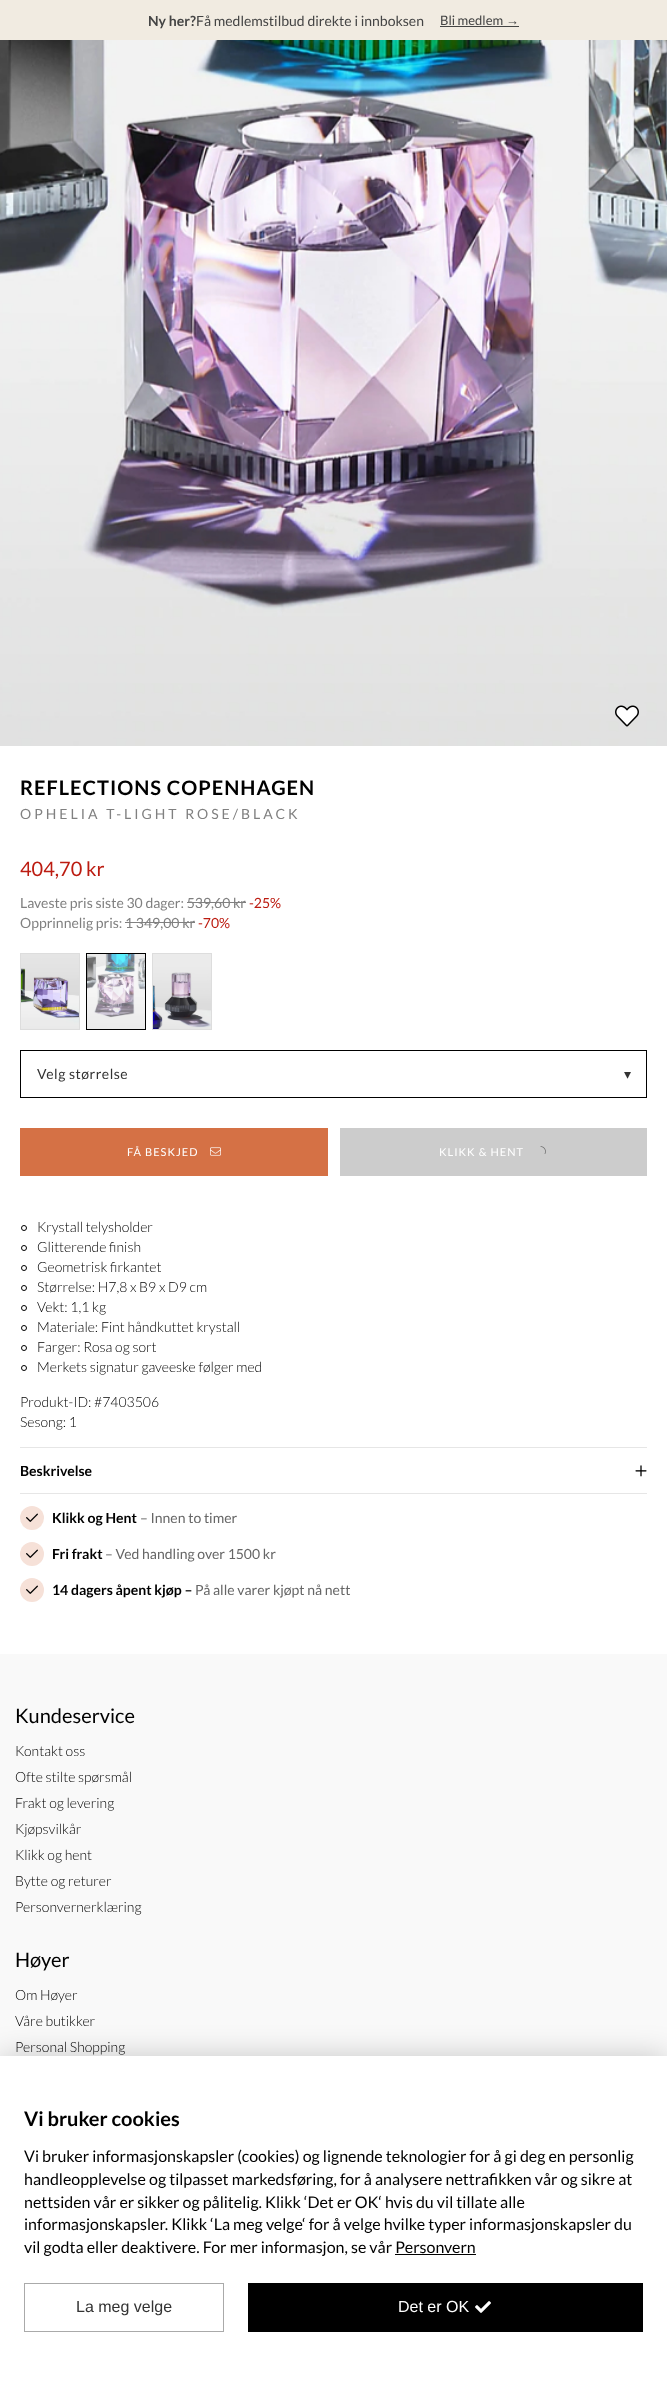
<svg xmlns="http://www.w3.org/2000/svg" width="667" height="2392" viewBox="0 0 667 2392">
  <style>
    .t1 { font: bold 14px Lato; fill: #444; }
    .t2 { font: 14px Lato; fill: #444; }
    .t3 { font: 13px Lato; fill: #444; }
    .t4 { font: 13px Liberation Serif; fill: #444; }
    .t5 { font: bold 20px Lato; letter-spacing: 1px; fill: #000; }
    .t6 { font: 14px Lato; letter-spacing: 3px; fill: #808080; }
    .t7 { font: 20px Lato; fill: #bc1c11; }
    .t8 { font: 14px Lato; fill: #808080; }
    .t9 { font: 14px Lato; fill: #bc1c11; }
    .t10 { font: 14px Lato; letter-spacing: 0.5px; fill: #333; }
    .t11 { font: 14px DejaVu Sans; letter-spacing: 0.5px; fill: #333; }
    .t12 { font: 11px Lato; letter-spacing: 1px; fill: #fff; }
    .t13 { font: 300 14px Lato; fill: #000; }
    .t14 { font: bold 14px Lato; fill: #000; }
    .t15 { font: 14px Lato; fill: #666; }
    .t16 { font: 20px Lato; fill: #000; }
    .t17 { font: bold 20px Lato; fill: #000; }
    .t18 { font: 16px Lato; fill: #000; }
    .t19 { font: 16px Liberation Sans; fill: #333; }
    .t20 { font: 16px Liberation Sans; fill: #fff; }
  </style>
  <rect width="100%" height="100%" fill="#fff"/>
  <rect x="0" y="0" width="667" height="40" fill="#f1ebe1"/>
  <text x="148" y="26" class="t1">Ny her?</text>
  <text x="196" y="26" class="t2">Få medlemstilbud direkte i innboksen</text>
  <text x="440" y="25" class="t3">Bli medlem</text>
  <text x="506" y="25" class="t4">→</text>
  <rect x="440" y="26" width="79" height="1" fill="#444"/>
  <image x="0" y="40" width="667" height="706" href="images/1.png"/>
  <image x="615" y="705" width="24" height="22" href="images/2.png"/>
  <text x="20" y="795" class="t5">REFLECTIONS COPENHAGEN</text>
  <text x="20" y="819" class="t6">OPHELIA T-LIGHT ROSE/BLACK</text>
  <text x="20" y="876" class="t7">404,70 kr</text>
  <text x="20" y="908" class="t8">Laveste pris siste 30 dager: 539,60 kr</text>
  <text x="249" y="908" class="t9">-25%</text>
  <rect x="187" y="902" width="59" height="1" fill="#808080"/>
  <text x="20" y="928" class="t8">Opprinnelig pris: 1 349,00 kr</text>
  <text x="198" y="928" class="t9">-70%</text>
  <rect x="125" y="922" width="70" height="1" fill="#808080"/>
  <rect x="20.5" y="953.5" width="59" height="76" fill="none" stroke="#ddd"/>
  <image x="21" y="954" width="58" height="75" href="images/3.png"/>
  <rect x="86.5" y="953.5" width="59" height="76" fill="none" stroke="#000"/>
  <image x="87" y="954" width="58" height="75" href="images/4.png"/>
  <rect x="152.5" y="953.5" width="59" height="76" fill="none" stroke="#ddd"/>
  <image x="153" y="954" width="58" height="75" href="images/5.png"/>
  <rect x="20.5" y="1050.5" width="626" height="47" fill="none" stroke="#000"/>
  <text x="37" y="1079" class="t10">Velg størrelse</text>
  <text x="624" y="1079" class="t11">▾</text>
  <rect x="20" y="1128" width="308" height="48" fill="#d57145"/>
  <text x="127" y="1156" class="t12">FÅ BESKJED</text>
  <image x="210" y="1147" width="11" height="9" href="images/6.png"/>
  <rect x="340" y="1128" width="307" height="48" fill="#ccc"/>
  <text x="439" y="1156" class="t12">KLIKK &amp; HENT</text>
  <image x="540" y="1146" width="6" height="8" href="images/7.png"/>
  <circle cx="24" cy="1228" r="2.5" fill="none" stroke="#000"/>
  <text x="37" y="1232" class="t13">Krystall telysholder</text>
  <circle cx="24" cy="1248" r="2.5" fill="none" stroke="#000"/>
  <text x="37" y="1252" class="t13">Glitterende finish</text>
  <circle cx="24" cy="1268" r="2.5" fill="none" stroke="#000"/>
  <text x="37" y="1272" class="t13">Geometrisk firkantet</text>
  <circle cx="24" cy="1288" r="2.5" fill="none" stroke="#000"/>
  <text x="37" y="1292" class="t13">Størrelse: H7,8 x B9 x D9 cm</text>
  <circle cx="24" cy="1308" r="2.5" fill="none" stroke="#000"/>
  <text x="37" y="1312" class="t13">Vekt: 1,1 kg</text>
  <circle cx="24" cy="1328" r="2.5" fill="none" stroke="#000"/>
  <text x="37" y="1332" class="t13">Materiale: Fint håndkuttet krystall</text>
  <circle cx="24" cy="1348" r="2.5" fill="none" stroke="#000"/>
  <text x="37" y="1352" class="t13">Farger: Rosa og sort</text>
  <circle cx="24" cy="1368" r="2.5" fill="none" stroke="#000"/>
  <text x="37" y="1372" class="t13">Merkets signatur gaveeske følger med</text>
  <text x="20" y="1407" class="t13">Produkt-ID: #7403506</text>
  <text x="20" y="1427" class="t13">Sesong: 1</text>
  <rect x="20" y="1447" width="627" height="1" fill="#e6e6e6"/>
  <rect x="20" y="1493" width="627" height="1" fill="#e6e6e6"/>
  <image x="635" y="1465" width="12" height="12" href="images/8.png"/>
  <text x="20" y="1476" class="t14">Beskrivelse</text>
  <circle cx="32" cy="1518" r="12" fill="#f6e1d8"/>
  <image x="26" y="1513" width="12" height="9" href="images/9.png"/>
  <text x="52" y="1523" class="t14">Klikk og Hent</text>
  <text x="140" y="1523" class="t15">– Innen to timer</text>
  <circle cx="32" cy="1554" r="12" fill="#f6e1d8"/>
  <image x="26" y="1549" width="12" height="9" href="images/9.png"/>
  <text x="52" y="1559" class="t14">Fri frakt</text>
  <text x="105" y="1559" class="t15">– Ved handling over 1500 kr</text>
  <circle cx="32" cy="1590" r="12" fill="#f6e1d8"/>
  <image x="26" y="1585" width="12" height="9" href="images/9.png"/>
  <text x="52" y="1595" class="t14">14 dagers åpent kjøp –</text>
  <text x="195" y="1595" class="t15">På alle varer kjøpt nå nett</text>
  <rect x="0" y="1654" width="667" height="402" fill="#f9f9f9"/>
  <text x="15" y="1723" class="t16">Kundeservice</text>
  <text x="15" y="1756" class="t13">Kontakt oss</text>
  <text x="15" y="1782" class="t13">Ofte stilte spørsmål</text>
  <text x="15" y="1808" class="t13">Frakt og levering</text>
  <text x="15" y="1834" class="t13">Kjøpsvilkår</text>
  <text x="15" y="1860" class="t13">Klikk og hent</text>
  <text x="15" y="1886" class="t13">Bytte og returer</text>
  <text x="15" y="1912" class="t13">Personvernerklæring</text>
  <text x="15" y="1967" class="t16">Høyer</text>
  <text x="15" y="2000" class="t13">Om Høyer</text>
  <text x="15" y="2026" class="t13">Våre butikker</text>
  <text x="15" y="2052" class="t13">Personal Shopping</text>
  <rect x="0" y="2056" width="667" height="336" fill="#00000033" filter="blur(15px)"/>
  <rect x="0" y="2056" width="667" height="336" fill="#fff"/>
  <text x="24" y="2126" class="t17">Vi bruker cookies</text>
  <text x="24" y="2162" class="t18">Vi bruker informasjonskapsler (cookies) og lignende teknologier for å gi deg en personlig</text>
  <text x="24" y="2185" class="t18">handleopplevelse og tilpasset markedsføring, for å analysere nettrafikken vår og sikre at</text>
  <text x="24" y="2208" class="t18">nettsiden vår er sikker og pålitelig. Klikk ‘Det er OK‘ hvis du vil tillate alle</text>
  <text x="24" y="2230" class="t18">informasjonskapsler. Klikk ‘La meg velge‘ for å velge hvilke typer informasjonskapsler du</text>
  <text x="24" y="2253" class="t18">vil godta eller deaktivere. For mer informasjon, se vår Personvern</text>
  <rect x="395" y="2254" width="81" height="1" fill="#000"/>
  <rect x="24.5" y="2283.5" width="199" height="48" fill="none" stroke="#aaa"/>
  <text x="76" y="2312" class="t19">La meg velge</text>
  <rect x="248" y="2283" width="395" height="49" fill="#000"/>
  <text x="398" y="2312" class="t20">Det er OK</text>
  <image x="475" y="2301" width="16" height="12" href="images/10.png"/>
</svg>
